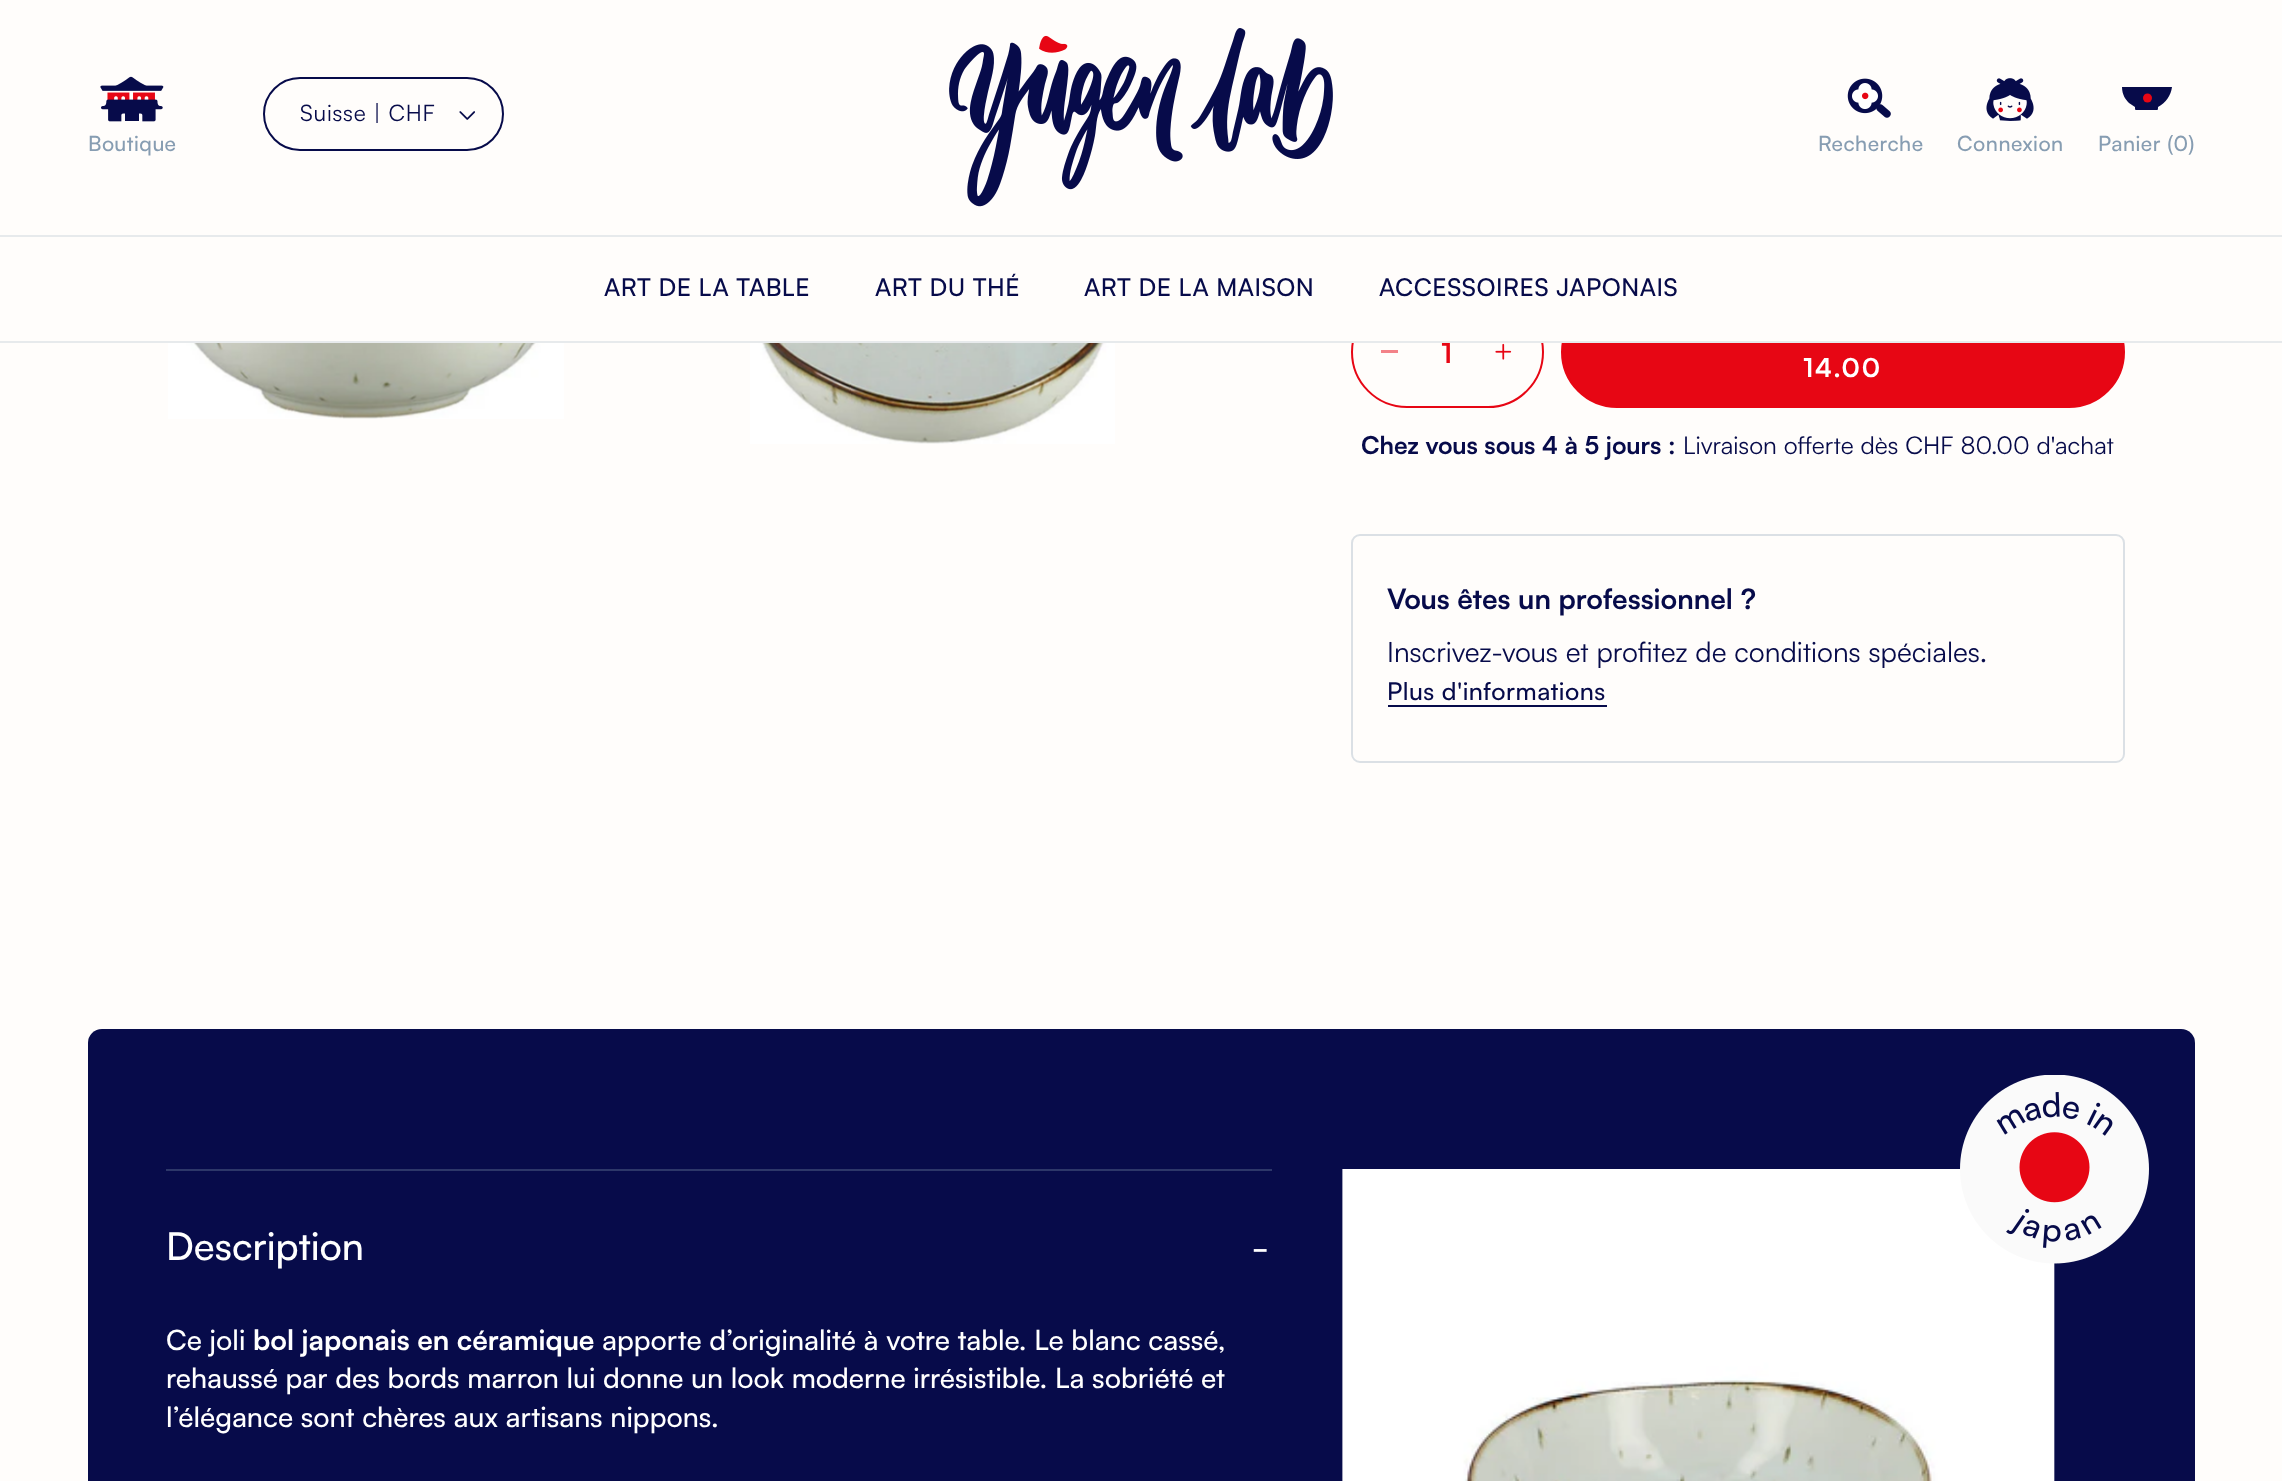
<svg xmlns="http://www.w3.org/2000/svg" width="2282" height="1481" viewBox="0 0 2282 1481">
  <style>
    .t1 { font: bold 28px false; fill: #e70614; }
    .t2 { font: 22.75px false; letter-spacing: 0.75px; fill: #070b4a; }
    .t3 { font: 500 21px Satoshi; letter-spacing: 0.5px; fill: #879db2; }
    .t4 { font: 500 24.5px Satoshi; letter-spacing: 0.5px; fill: #070b4a; }
    .t5 { font: bold 26px false; letter-spacing: 1.75px; fill: #fff; }
    .t6 { font: bold 24.5px false; fill: #070b4a; }
    .t7 { font: 24.5px false; fill: #070b4a; }
    .t8 { font: bold 28px false; fill: #070b4a; }
    .t9 { font: 28px false; fill: #070b4a; }
    .t10 { font: 500 38.5px Satoshi; fill: #fff; }
    .t11 { font: 44px false; fill: #fff; }
    .t12 { font: 500 28px Satoshi; fill: #fff; }
    .t13 { font: bold 28px false; fill: #fff; }
  </style>
  <rect width="100%" height="100%" fill="#fffdfb"/>
  <rect x="1352" y="297" width="191" height="110" rx="55" fill="none" stroke="#e70614" stroke-width="2"/>
  <rect x="1562" y="297" width="562" height="110" rx="55" fill="#e70614" stroke="#e70614" stroke-width="2"/>
  <rect x="1352" y="296" width="772" height="45" fill="#fffdfb"/>
  <text x="1441" y="363" class="t1">1</text>
  <rect x="0" y="341" width="2282" height="2" fill="#e7eaec"/>
  <image x="459" y="111" width="16" height="9" href="images/1.png"/>
  <rect x="264" y="78" width="239" height="72" rx="36" fill="none" stroke="#070b4a" stroke-width="2"/>
  <text x="300" y="121" class="t2">Suisse | CHF</text>
  <image x="100" y="76" width="64" height="46" href="images/2.png"/>
  <text x="88" y="151" class="t3">Boutique</text>
  <image x="949" y="28" width="384" height="179" href="images/3.png"/>
  <image x="1847" y="78" width="44" height="40" href="images/4.png"/>
  <text x="1818" y="151" class="t3">Recherche</text>
  <image x="1986" y="78" width="48" height="43" href="images/5.png"/>
  <text x="1957" y="151" class="t3">Connexion</text>
  <path d="M2129 103L2135 107C2135 111 2135 110 2140 110H2153C2158 110 2158 111 2158 107C2166 103 2171 95 2172 87H2122C2122 95 2126 100 2129 103Z" fill="#070b4a"/>
  <circle cx="2147.5" cy="98" r="4.5" fill="#e70614"/>
  <text x="2098" y="151" class="t3">Panier (0)</text>
  <rect x="0" y="235" width="2282" height="2" fill="#e7eaec"/>
  <text x="604" y="296" class="t4">ART DE LA TABLE</text>
  <text x="875" y="296" class="t4">ART DU THÉ</text>
  <text x="1084" y="296" class="t4">ART DE LA MAISON</text>
  <text x="1379" y="296" class="t4">ACCESSOIRES JAPONAIS</text>
  <image x="168" y="343" width="396" height="76" href="images/6.png"/>
  <image x="750" y="343" width="365" height="101" href="images/7.png"/>
  <rect x="1381" y="350" width="17" height="3" fill="#f38288"/>
  <image x="1495" y="343" width="17" height="17" href="images/8.png"/>
  <text x="1803" y="377" class="t5">14.00</text>
  <text x="1361" y="454" class="t6">Chez vous sous 4 à 5 jours :</text>
  <text x="1683" y="454" class="t7">Livraison offerte dès CHF 80.00 d'achat</text>
  <rect x="1352" y="535" width="772" height="227" rx="8" fill="none" stroke="#dbe0e5" stroke-width="2"/>
  <text x="1387" y="609" class="t8">Vous êtes un professionnel ?</text>
  <text x="1387" y="662" class="t9">Inscrivez-vous et profitez de conditions spéciales.</text>
  <text x="1387" y="700" class="t4">Plus d'informations</text>
  <rect x="1388" y="705" width="219" height="2" fill="#070b4a"/>
  <rect x="88" y="1029" width="2107" height="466" rx="14" fill="#070b4a"/>
  <rect x="166" y="1169" width="1106" height="2" fill="#2d3769"/>
  <text x="166" y="1260" class="t10">Description</text>
  <text x="1251" y="1262" class="t11">-</text>
  <text x="166" y="1350" class="t12">Ce joli</text>
  <text x="253" y="1350" class="t13">bol japonais en céramique</text>
  <text x="602" y="1350" class="t12">apporte d’originalité à votre table. Le blanc cassé,</text>
  <text x="166" y="1388" class="t12">rehaussé par des bords marron lui donne un look moderne irrésistible. La sobriété et</text>
  <text x="166" y="1427" class="t12">l’élégance sont chères aux artisans nippons.</text>
  <rect x="1342" y="1169" width="713" height="312" fill="#20235c"/>
  <image x="1342" y="1169" width="713" height="312" href="images/10.png"/>
  <image x="1960" y="1075" width="189" height="189" href="images/9.png"/>
</svg>
